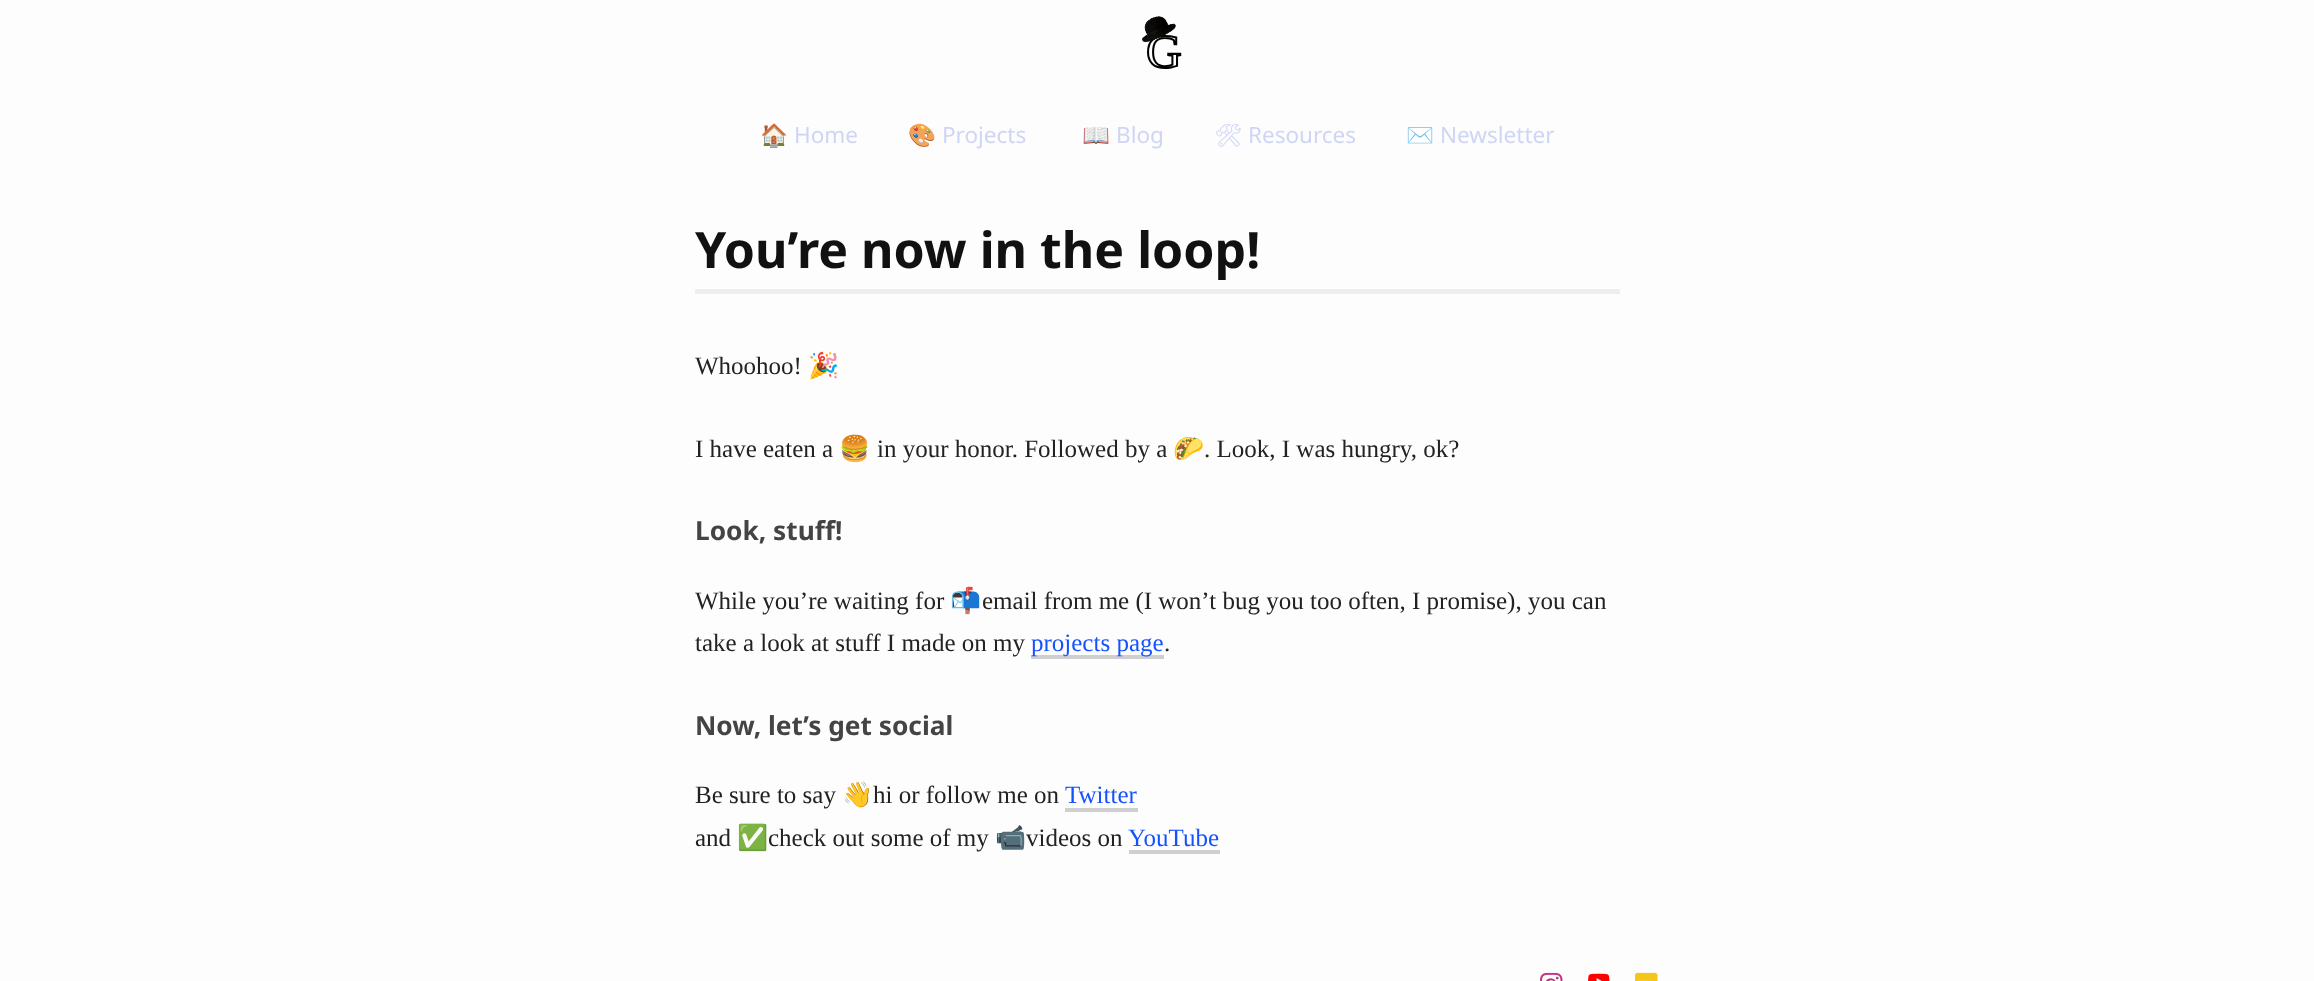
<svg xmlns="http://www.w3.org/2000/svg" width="2314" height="981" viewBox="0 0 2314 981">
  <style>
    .t1 { font: 22.5px Noto Color Emoji; fill: #cfd5f5; }
    .t2 { font: 22.5px Noto Sans; fill: #cfd5f5; }
    .t3 { font: 22.5px Noto Emoji; fill: #cfd5f5; }
    .t4 { font: bold 50px Noto Sans; fill: #111; }
    .t5 { font: 25px Liberation Serif; fill: #222; }
    .t6 { font: 25px Noto Color Emoji; fill: #222; }
    .t7 { font: bold 26.25px Noto Sans; fill: #444; }
    .t8 { font: 25px Liberation Serif; fill: #1452ff; }
  </style>
  <rect width="100%" height="100%" fill="#fdfdfd"/>
  <image x="1142" y="16" width="40" height="53" href="images/1.png"/>
  <text x="760" y="143" class="t1">🏠</text>
  <text x="794" y="143" class="t2">Home</text>
  <text x="908" y="143" class="t1">🎨</text>
  <text x="942" y="143" class="t2">Projects</text>
  <text x="1082" y="143" class="t1">📖</text>
  <text x="1116" y="143" class="t2">Blog</text>
  <text x="1214" y="143" class="t3">🛠</text>
  <text x="1248" y="143" class="t2">Resources</text>
  <text x="1406" y="143" class="t1">✉️</text>
  <text x="1440" y="143" class="t2">Newsletter</text>
  <rect x="695" y="289" width="925" height="5" fill="#eee"/>
  <text x="695" y="268" class="t4">You’re now in the loop!</text>
  <text x="695" y="374" class="t5">Whoohoo!</text>
  <text x="808" y="374" class="t6">🎉</text>
  <text x="695" y="457" class="t5">I have eaten a</text>
  <text x="839" y="457" class="t6">🍔</text>
  <text x="877" y="457" class="t5">in your honor. Followed by a</text>
  <text x="1173" y="457" class="t6">🌮</text>
  <text x="1204" y="457" class="t5">. Look, I was hungry, ok?</text>
  <text x="695" y="540" class="t7">Look, stuff!</text>
  <text x="695" y="609" class="t5">While you’re waiting for</text>
  <text x="950" y="609" class="t6">📬</text>
  <text x="982" y="609" class="t5">email from me (I won’t bug you too often, I promise), you can</text>
  <text x="695" y="651" class="t5">take a look at stuff I made on my</text>
  <rect x="1031" y="655" width="133" height="4" fill="#cfcfcf"/>
  <text x="1031" y="651" class="t8">projects page</text>
  <text x="1164" y="651" class="t5">.</text>
  <text x="695" y="735" class="t7">Now, let’s get social</text>
  <text x="695" y="803" class="t5">Be sure to say</text>
  <text x="842" y="803" class="t6">👋</text>
  <text x="873" y="803" class="t5">hi or follow me on</text>
  <text x="1065" y="803" class="t8">Twitter</text>
  <rect x="1065" y="808" width="73" height="4" fill="#cfcfcf"/>
  <text x="695" y="846" class="t5">and</text>
  <text x="737" y="846" class="t6">✅</text>
  <text x="768" y="846" class="t5">check out some of my</text>
  <text x="995" y="846" class="t6">📹</text>
  <text x="1026" y="846" class="t5">videos on</text>
  <text x="1128" y="846" class="t8">YouTube</text>
  <rect x="1129" y="850" width="91" height="4" fill="#cfcfcf"/>
  <image x="1540" y="972" width="23" height="9" href="images/2.png"/>
  <image x="1588" y="973" width="22" height="8" href="images/3.png"/>
  <image x="1635" y="972" width="23" height="9" href="images/4.png"/>
</svg>
